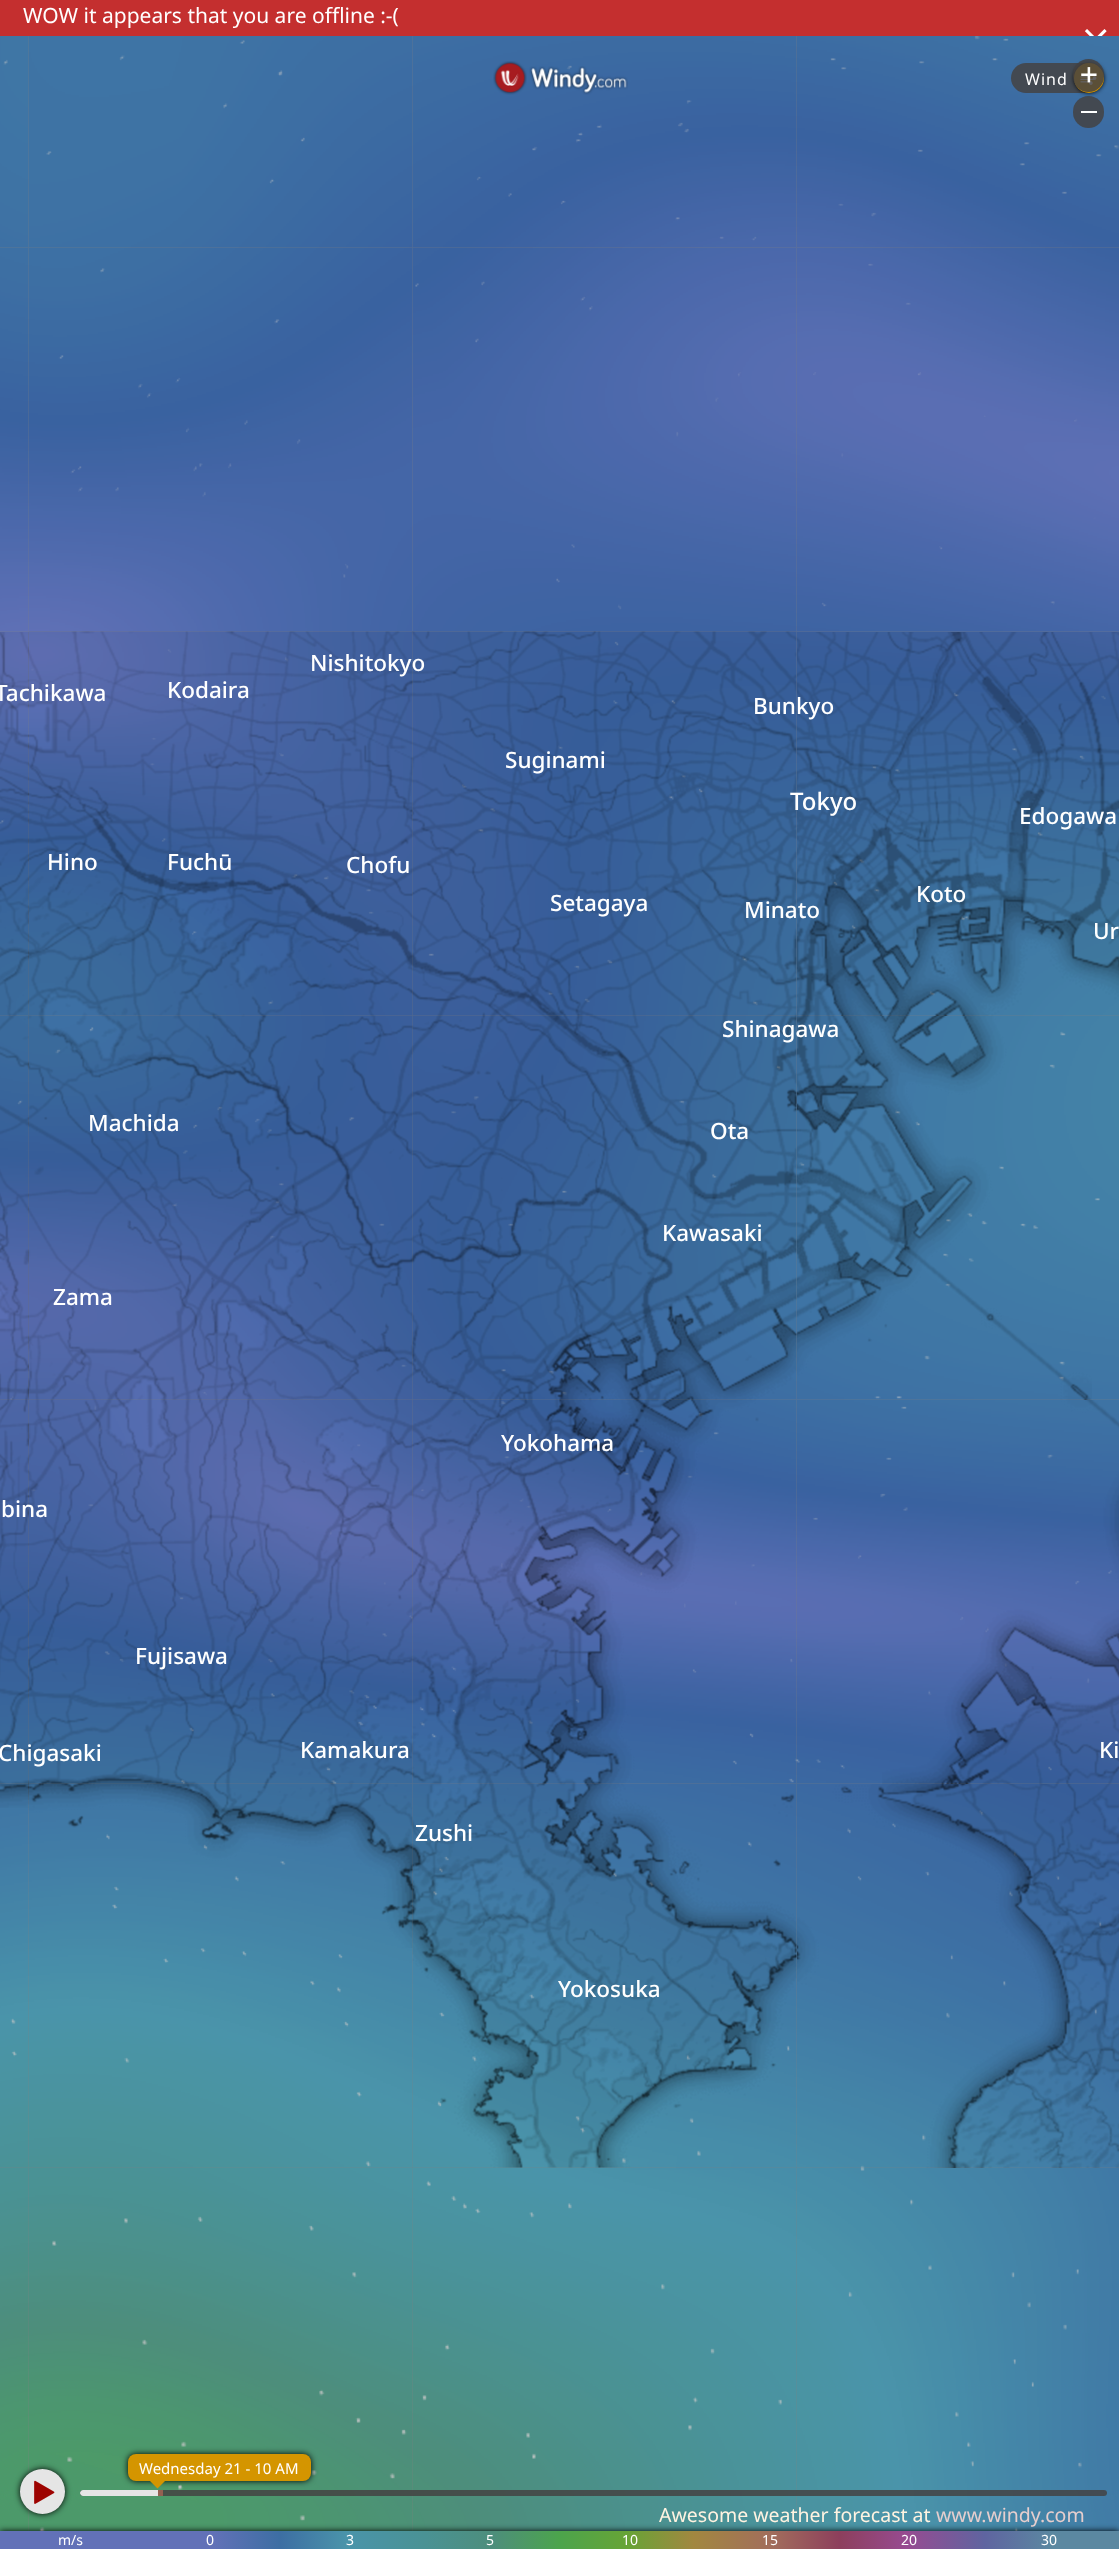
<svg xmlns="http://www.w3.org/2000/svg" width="1119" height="2549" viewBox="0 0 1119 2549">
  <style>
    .t1 { font: 21px Noto Sans; fill: #fff; }
    .t2 { font: 16px Noto Sans; letter-spacing: 1px; fill: #fff; }
    .t3 { font: 500 22.5px Noto Sans; fill: #fff; }
    .t4 { font: 500 24px Noto Sans; fill: #fff; }
    .t5 { font: 15px Noto Sans; fill: #fff; }
    .t6 { font: 19.5px Noto Sans; fill: #fff3e1; }
    .t7 { font: 19.5px Noto Sans; fill: #e6cece; }
    .t8 { font: 14px Noto Sans; fill: #fff; }
  </style>
  <defs>
    <linearGradient id="g1" gradientUnits="userSpaceOnUse" x1="0" y1="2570" x2="1119" y2="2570"><stop offset="0" stop-color="#6271b8"/><stop offset="0.19" stop-color="#6271b8"/><stop offset="0.25" stop-color="#3d6ea3"/><stop offset="0.31" stop-color="#4a94aa"/><stop offset="0.38" stop-color="#4a9294"/><stop offset="0.44" stop-color="#4d8e7c"/><stop offset="0.5" stop-color="#4ca44c"/><stop offset="0.56" stop-color="#67a436"/><stop offset="0.62" stop-color="#a28740"/><stop offset="0.69" stop-color="#a26d5c"/><stop offset="0.75" stop-color="#8d3f5c"/><stop offset="0.81" stop-color="#974b91"/><stop offset="0.88" stop-color="#5f64a0"/><stop offset="0.94" stop-color="#5b88a1"/><stop offset="1" stop-color="#5b88a1"/></linearGradient>
  </defs>
  <rect width="100%" height="100%" fill="#808080"/>
  <rect x="0" y="0" width="1119" height="36" fill="#c42f2f"/>
  <text x="23" y="23" class="t1">WOW it appears that you are offline :-(</text>
  <image x="1084" y="29" width="23" height="7" href="images/1.png"/>
  <image x="28" y="1015" width="385" height="385" href="images/19.png"/>
  <image x="412" y="1015" width="385" height="385" href="images/20.png"/>
  <image x="28" y="631" width="385" height="385" href="images/15.png"/>
  <image x="28" y="1399" width="385" height="385" href="images/23.png"/>
  <image x="0" y="1015" width="29" height="385" href="images/18.png"/>
  <image x="0" y="631" width="29" height="385" href="images/14.png"/>
  <image x="412" y="631" width="385" height="385" href="images/16.png"/>
  <image x="28" y="247" width="385" height="385" href="images/11.png"/>
  <image x="0" y="247" width="29" height="385" href="images/10.png"/>
  <image x="412" y="1399" width="385" height="385" href="images/24.png"/>
  <image x="796" y="1015" width="323" height="385" href="images/21.png"/>
  <image x="796" y="631" width="323" height="385" href="images/17.png"/>
  <image x="412" y="247" width="385" height="385" href="images/12.png"/>
  <image x="28" y="36" width="385" height="212" href="images/7.png"/>
  <image x="796" y="247" width="323" height="385" href="images/13.png"/>
  <image x="412" y="36" width="385" height="212" href="images/8.png"/>
  <image x="0" y="36" width="29" height="212" href="images/6.png"/>
  <image x="796" y="36" width="323" height="212" href="images/9.png"/>
  <image x="0" y="1399" width="29" height="385" href="images/22.png"/>
  <image x="796" y="1399" width="323" height="385" href="images/25.png"/>
  <image x="28" y="1783" width="385" height="385" href="images/27.png"/>
  <image x="0" y="1783" width="29" height="385" href="images/26.png"/>
  <image x="412" y="1783" width="385" height="385" href="images/28.png"/>
  <image x="796" y="1783" width="323" height="385" href="images/29.png"/>
  <image x="28" y="2167" width="385" height="364" href="images/31.png"/>
  <image x="0" y="2167" width="29" height="364" href="images/30.png"/>
  <image x="412" y="2167" width="385" height="364" href="images/32.png"/>
  <image x="796" y="2167" width="323" height="364" href="images/33.png"/>
  <image x="0" y="36" width="1119" height="2495" href="images/34.png"/>
  <image x="493" y="61" width="34" height="34" href="images/2.png"/>
  <image x="529" y="66" width="99" height="29" href="images/3.png"/>
  <rect x="1011" y="63" width="93" height="30" rx="15" fill="#444141d6"/>
  <text x="1025" y="85" class="t2">Wind</text>
  <rect x="1074" y="63" width="30" height="30" rx="15" fill="#000" filter="blur(2px)"/>
  <circle cx="1089" cy="78" r="15" fill="#d49500"/>
  <image x="1080" y="73" width="17" height="12" href="images/4.png"/>
  <rect x="1073" y="59" width="31" height="33" rx="15.5" fill="#444141d6"/>
  <image x="1081" y="67" width="16" height="16" href="images/5.png"/>
  <rect x="1073" y="96" width="31" height="32" rx="15.5" fill="#444141d6"/>
  <rect x="1081" y="111" width="16" height="2" fill="#fff"/>
  <image x="28" y="1015" width="385" height="385" href="images/40.png"/>
  <image x="412" y="1015" width="385" height="385" href="images/41.png"/>
  <image x="28" y="631" width="385" height="385" href="images/36.png"/>
  <image x="0" y="632" width="29" height="384" href="images/35.png"/>
  <image x="412" y="631" width="385" height="385" href="images/37.png"/>
  <image x="797" y="632" width="322" height="384" href="images/38.png"/>
  <image x="28" y="1399" width="385" height="385" href="images/44.png"/>
  <image x="0" y="1016" width="29" height="384" href="images/39.png"/>
  <image x="797" y="1016" width="295" height="384" href="images/42.png"/>
  <image x="0" y="1400" width="29" height="384" href="images/43.png"/>
  <image x="412" y="1399" width="347" height="385" href="images/45.png"/>
  <image x="882" y="1400" width="237" height="384" href="images/46.png"/>
  <image x="28" y="1783" width="385" height="165" href="images/48.png"/>
  <image x="0" y="1784" width="29" height="24" href="images/47.png"/>
  <image x="412" y="1783" width="385" height="385" href="images/49.png"/>
  <image x="797" y="1784" width="322" height="384" href="images/50.png"/>
  <text x="310" y="671" class="t3">Nishitokyo</text>
  <text x="-5" y="701" class="t3">Tachikawa</text>
  <text x="167" y="698" class="t3">Kodaira</text>
  <text x="47" y="870" class="t3">Hino</text>
  <text x="167" y="870" class="t3">Fuchū</text>
  <text x="346" y="873" class="t3">Chofu</text>
  <text x="753" y="714" class="t3">Bunkyo</text>
  <text x="505" y="768" class="t3">Suginami</text>
  <text x="550" y="911" class="t3">Setagaya</text>
  <text x="744" y="918" class="t3">Minato</text>
  <text x="790" y="810" class="t4">Tokyo</text>
  <text x="1019" y="824" class="t3">Edogawa</text>
  <text x="916" y="902" class="t3">Koto</text>
  <text x="1093" y="939" class="t3">Ur</text>
  <text x="88" y="1131" class="t3">Machida</text>
  <text x="53" y="1305" class="t3">Zama</text>
  <text x="722" y="1037" class="t3">Shinagawa</text>
  <text x="710" y="1139" class="t3">Ota</text>
  <text x="662" y="1241" class="t3">Kawasaki</text>
  <text x="501" y="1451" class="t3">Yokohama</text>
  <text x="1" y="1517" class="t3">bina</text>
  <text x="135" y="1664" class="t3">Fujisawa</text>
  <text x="-2" y="1761" class="t3">Chigasaki</text>
  <text x="300" y="1758" class="t3">Kamakura</text>
  <text x="1099" y="1758" class="t3">Ki</text>
  <text x="415" y="1841" class="t3">Zushi</text>
  <text x="558" y="1997" class="t3">Yokosuka</text>
  <rect x="20" y="2469" width="45" height="45" rx="22.5" fill="#000" filter="blur(3px)"/>
  <circle cx="42.5" cy="2491.5" r="22.5" fill="#e5e5e5"/>
  <image x="34" y="2480" width="21" height="24" href="images/51.png"/>
  <rect x="128" y="2454" width="183" height="27" rx="8" fill="#000" filter="blur(3px)"/>
  <rect x="128" y="2454" width="183" height="27" rx="8" fill="#d49500"/>
  <text x="139" y="2474" class="t5">Wednesday 21 - 10 AM</text>
  <path d="M150 2481H165L157.5 2488.5Z" fill="#d49500"/>
  <rect x="80" y="2490" width="1027" height="6" rx="3" fill="#444141d6"/>
  <path d="M83 2490H158V2496H83C81.5 2496 80 2494.5 80 2493C80 2491.5 81.5 2490 83 2490Z" fill="#e5e5e5"/>
  <rect x="158" y="2490" width="5" height="6" fill="#946051"/>
  <rect x="0" y="2531" width="1119" height="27" fill="#000" filter="blur(3px)"/>
  <text x="659" y="2522" class="t6">Awesome weather forecast at</text>
  <text x="936" y="2522" class="t7">www.windy.com</text>
  <rect x="0" y="2531" width="1119" height="18" fill="url(#g1)"/>
  <text x="58" y="2545" class="t8">m/s</text>
  <text x="206" y="2545" class="t8">0</text>
  <text x="346" y="2545" class="t8">3</text>
  <text x="486" y="2545" class="t8">5</text>
  <text x="622" y="2545" class="t8">10</text>
  <text x="762" y="2545" class="t8">15</text>
  <text x="901" y="2545" class="t8">20</text>
  <text x="1041" y="2545" class="t8">30</text>
</svg>
